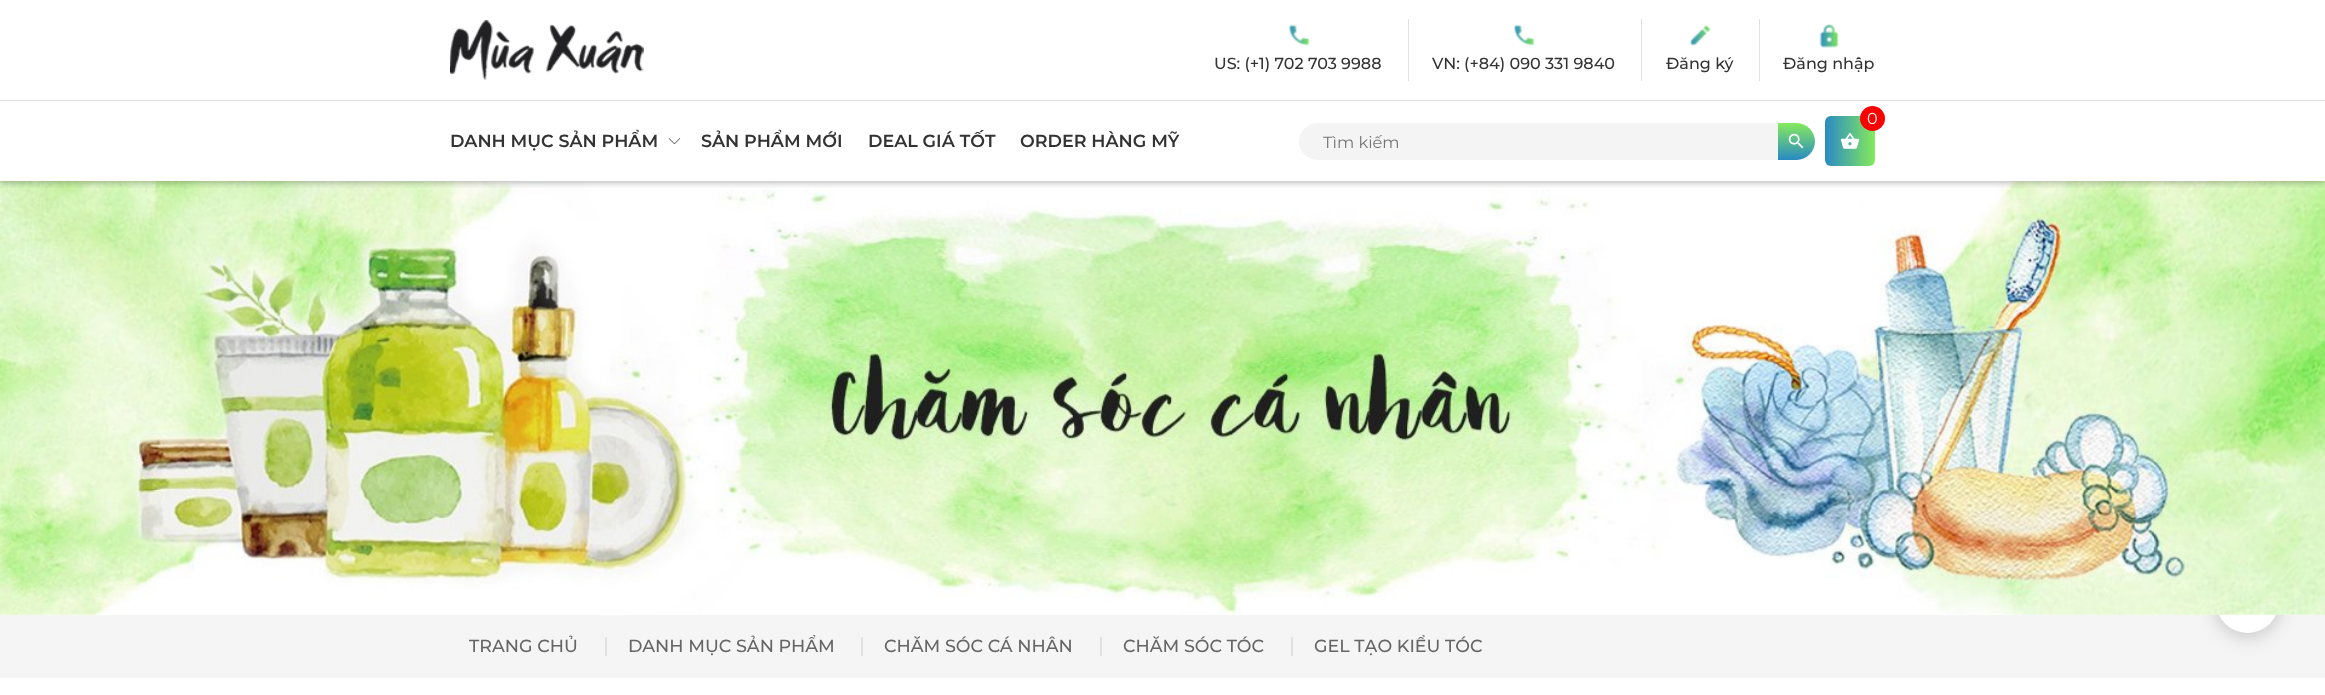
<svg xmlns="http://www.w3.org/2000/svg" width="2325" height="695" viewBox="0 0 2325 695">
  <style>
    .t1 { font: 500 16px Montserrat; fill: #333; }
    .t2 { font: 16px Montserrat; fill: #fff; }
    .t3 { font: 600 17.5px Montserrat; fill: #333; }
    .t4 { font: 16.25px Montserrat; fill: #757575; }
    .t5 { font: 500 17.5px Montserrat; fill: #666; }
    .t6 { font: 20px Montserrat; fill: #d7d7d7; }
  </style>
  <defs>
    <clipPath id="clip1"><rect x="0" y="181" width="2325" height="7"/></clipPath>
    <linearGradient id="g1" gradientUnits="userSpaceOnUse" x1="1825" y1="141" x2="1875" y2="141"><stop offset="0" stop-color="#298ac4"/><stop offset="1" stop-color="#85ea5c"/></linearGradient>
    <linearGradient id="g2" gradientUnits="userSpaceOnUse" x1="1796" y1="160" x2="1796" y2="123"><stop offset="0" stop-color="#298ac4"/><stop offset="1" stop-color="#85ea5c"/></linearGradient>
  </defs>
  <rect width="100%" height="100%" fill="#fff"/>
  <rect x="0" y="615" width="2325" height="63" fill="#f5f5f5"/>
  <rect x="2216" y="574" width="63" height="62" rx="31" fill="#00000033" filter="blur(9.5px)"/>
  <circle cx="2247.5" cy="601.5" r="31.5" fill="#fff"/>
  <image x="0" y="181" width="2325" height="434" href="images/8.png"/>
  <g clip-path="url(#clip1)">
    <rect x="0" y="0" width="2325" height="181" fill="#00000066" filter="blur(4.5px)"/>
  </g>
  <rect x="0" y="100" width="2325" height="1" fill="#e1e1e1"/>
  <image x="450" y="20" width="194" height="60" href="images/1.png"/>
  <image x="1289" y="24" width="21" height="22" href="images/2.png"/>
  <rect x="1408" y="19" width="1" height="62" fill="#e1e1e1"/>
  <text x="1214" y="69" class="t1">US: (+1) 702 703 9988</text>
  <image x="1514" y="24" width="21" height="22" href="images/2.png"/>
  <rect x="1641" y="19" width="1" height="62" fill="#e1e1e1"/>
  <text x="1432" y="69" class="t1">VN: (+84) 090 331 9840</text>
  <image x="1690" y="25" width="21" height="21" href="images/3.png"/>
  <rect x="1759" y="19" width="1" height="62" fill="#e1e1e1"/>
  <text x="1666" y="69" class="t1">Đăng ký</text>
  <image x="1819" y="24" width="20" height="24" href="images/4.png"/>
  <text x="1783" y="69" class="t1">Đăng nhập</text>
  <rect x="1825" y="116" width="50" height="50" rx="6" fill="url(#g1)"/>
  <circle cx="1872.5" cy="118.5" r="12.5" fill="#f00"/>
  <text x="1867" y="124" class="t2">0</text>
  <image x="1840" y="133" width="20" height="16" href="images/5.png"/>
  <text x="450" y="147" class="t3">DANH MỤC SẢN PHẨM</text>
  <image x="668" y="138" width="13" height="7" href="images/6.png"/>
  <text x="701" y="147" class="t3">SẢN PHẨM MỚI</text>
  <text x="868" y="147" class="t3">DEAL GIÁ TỐT</text>
  <text x="1020" y="147" class="t3">ORDER HÀNG MỸ</text>
  <rect x="1299" y="123" width="516" height="37" rx="18.5" fill="#f4f4f4"/>
  <text x="1323" y="148" class="t4">Tìm kiếm</text>
  <path d="M1778 123H1796.5C1806.5 123 1815 131.5 1815 141.5C1815 151.5 1806.5 160 1796.5 160H1778Z" fill="url(#g2)"/>
  <image x="1788" y="133" width="16" height="16" href="images/7.png"/>
  <text x="469" y="652" class="t5">TRANG CHỦ</text>
  <text x="603" y="652" class="t6">|</text>
  <text x="628" y="652" class="t5">DANH MỤC SẢN PHẨM</text>
  <text x="859" y="652" class="t6">|</text>
  <text x="884" y="652" class="t5">CHĂM SÓC CÁ NHÂN</text>
  <text x="1098" y="652" class="t6">|</text>
  <text x="1123" y="652" class="t5">CHĂM SÓC TÓC</text>
  <text x="1289" y="652" class="t6">|</text>
  <text x="1314" y="652" class="t5">GEL TẠO KIỂU TÓC</text>
</svg>
